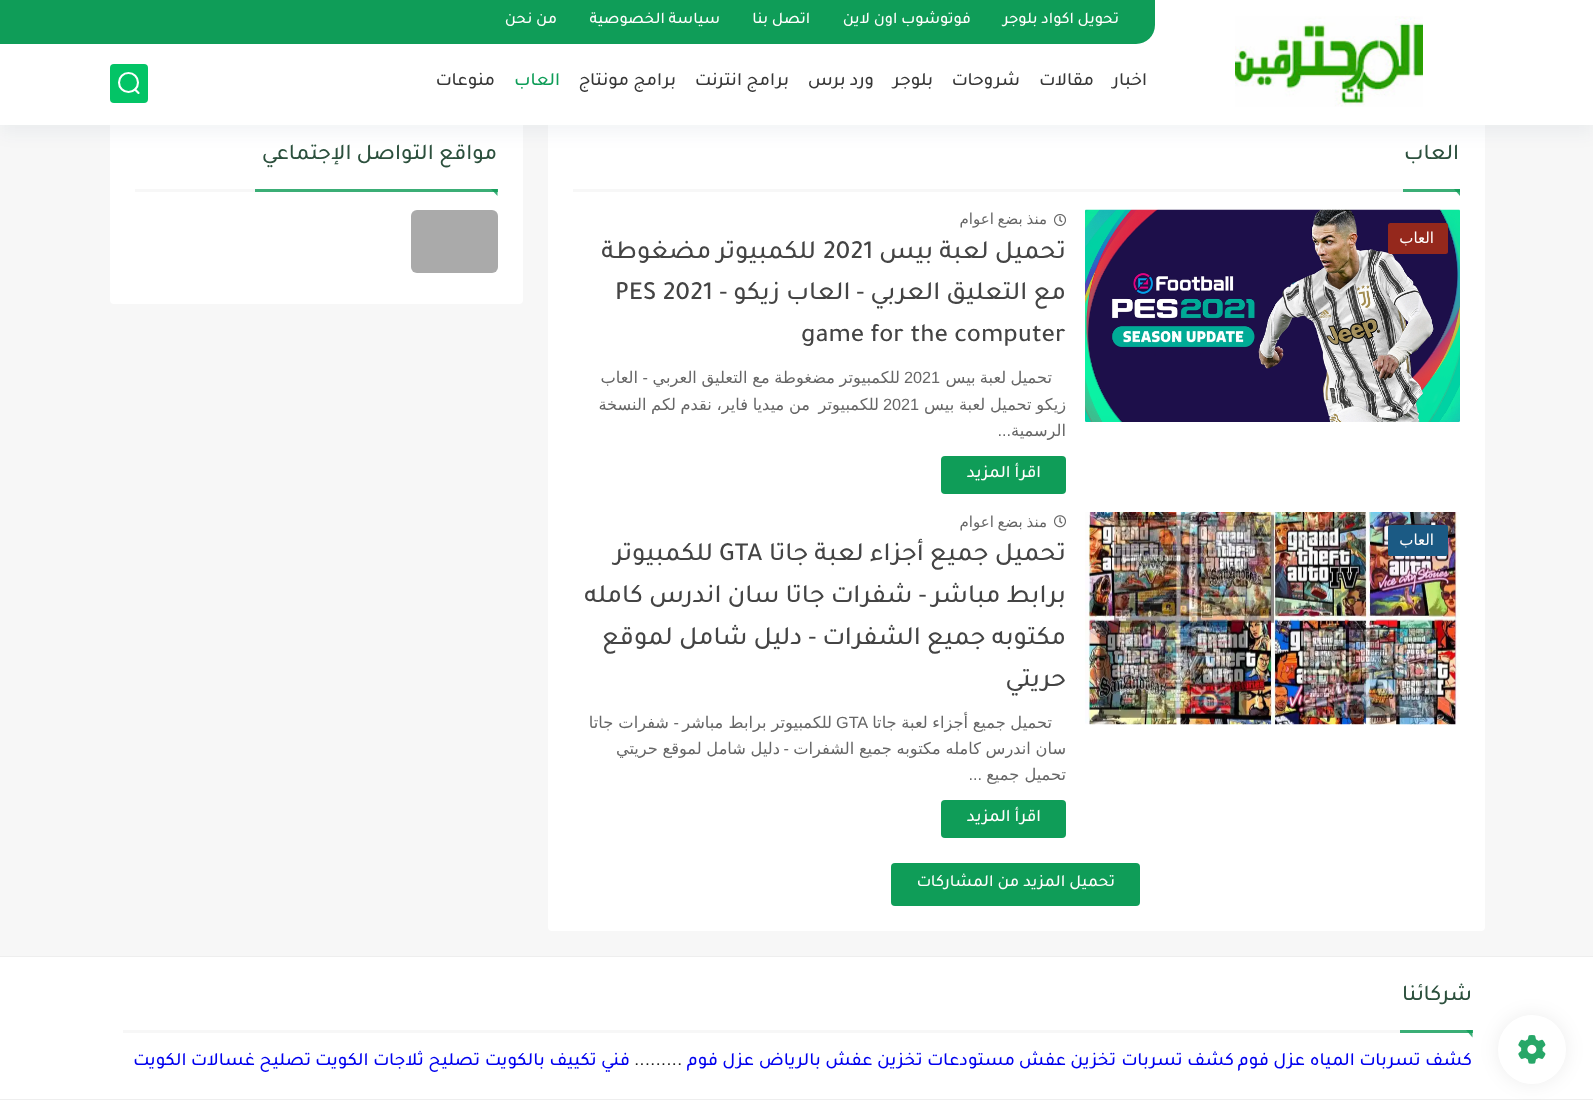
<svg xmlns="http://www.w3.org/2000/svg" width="1593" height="1108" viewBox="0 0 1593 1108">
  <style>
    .t1 { font: 500 16.25px Tajawal; direction: rtl; fill: #fffdfc; }
    .t2 { font: 500 18.75px Tajawal; direction: rtl; fill: #373737; }
    .t3 { font: 500 18.75px Tajawal; direction: rtl; fill: #0f9d58; }
    .t4 { font: 500 22.5px Tajawal; direction: rtl; fill: #2c503d; }
    .t5 { font: 15px DejaVu Sans; direction: rtl; fill: #fffdfc; }
    .t6 { font: 15px DejaVu Sans; direction: rtl; fill: #666; }
    .t7 { font: 500 26.25px Tajawal; direction: rtl; fill: #444; }
    .t8 { font: 500 26.25px Tajawal; fill: #444; }
    .t9 { font: 16.25px DejaVu Sans; direction: rtl; fill: #666; }
    .t10 { font: 16.25px Liberation Sans; fill: #666; }
    .t11 { font: 16.25px Liberation Sans; direction: rtl; fill: #666; }
    .t12 { font: 500 17.5px Tajawal; direction: rtl; fill: #fffdfc; }
    .t13 { font: 500 16.9px Tajawal; direction: rtl; fill: #fffdfc; }
    .t14 { font: 500 18.75px Tajawal; direction: rtl; fill: #00e; }
    .t15 { font: 500 18.75px Tajawal; fill: #000; }
  </style>
  <defs>
    <clipPath id="clip1"><rect x="573" y="365" width="493" height="79"/></clipPath>
    <clipPath id="clip2"><rect x="573" y="709" width="493" height="79"/></clipPath>
  </defs>
  <rect width="100%" height="100%" fill="#f7f7f7"/>
  <rect x="548" y="110" width="937" height="821" rx="4" fill="#fff"/>
  <rect x="110" y="110" width="413" height="194" rx="4" fill="#fff"/>
  <rect x="0" y="8" width="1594" height="125" fill="#09204c0d" filter="blur(9px)"/>
  <rect x="0" y="0" width="1593" height="125" fill="#fff"/>
  <path d="M-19 0H1155V25C1155 35.5 1146.5 44 1136 44H0C-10.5 44-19 35.5-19 25Z" fill="#0f9d58"/>
  <text x="1119" y="23" class="t1">تحويل اكواد بلوجر</text>
  <text x="971" y="23" class="t1">فوتوشوب اون لاين</text>
  <text x="810" y="23" class="t1">اتصل بنا</text>
  <text x="720" y="23" class="t1">سياسة الخصوصية</text>
  <text x="557" y="23" class="t1">من نحن</text>
  <image x="1235" y="16" width="188" height="91" href="images/1.png"/>
  <text x="1147" y="85" class="t2">اخبار</text>
  <text x="1094" y="85" class="t2">مقالات</text>
  <text x="1020" y="85" class="t2">شروحات</text>
  <text x="933" y="85" class="t2">بلوجر</text>
  <text x="874" y="85" class="t2">ورد برس</text>
  <text x="789" y="85" class="t2">برامج انترنت</text>
  <text x="676" y="85" class="t2">برامج مونتاج</text>
  <text x="560" y="85" class="t3">العاب</text>
  <text x="495" y="85" class="t2">منوعات</text>
  <rect x="110" y="64" width="38" height="39" rx="4" fill="#03c466"/>
  <circle cx="128.5" cy="82.5" r="9.5" fill="none" stroke="#fff" stroke-width="2.1"/>
  <path d="M135 89.5L138.5 93" fill="none" stroke="#fff" stroke-width="2.1" stroke-linecap="round" stroke-linejoin="round"/>
  <rect x="573" y="189" width="887" height="3" fill="#f7f7f7"/>
  <text x="1459" y="159" class="t4">العاب</text>
  <path d="M1454 189H1460V196Z" fill="#0f9d58cf"/>
  <rect x="1403" y="189" width="57" height="3" fill="#0f9d58cf"/>
  <image x="1085" y="209" width="375" height="213" href="images/2.png"/>
  <rect x="1388" y="223" width="60" height="31" rx="2.5" fill="#95281c"/>
  <text x="1434" y="243" class="t5">العاب</text>
  <image x="1054" y="214" width="12" height="12" href="images/3.png"/>
  <text x="1047" y="224" word-spacing="-1" class="t6">منذ بضع اعوام</text>
  <text x="1066" y="258" class="t7">تحميل لعبة بيس</text>
  <text x="823" y="258" class="t8">2021</text>
  <text x="816" y="258" class="t7">للكمبيوتر مضغوطة</text>
  <text x="1066" y="299" class="t7">مع التعليق العربي - العاب زيكو -</text>
  <text x="615" y="299" class="t8">PES 2021</text>
  <text x="801" y="341" class="t8">game for the computer</text>
  <text x="1052" y="383" word-spacing="-1" class="t9">تحميل لعبة بيس</text>
  <text x="904" y="383" class="t10">2021</text>
  <text x="900" y="383" word-spacing="-0.5" class="t9">للكمبيوتر مضغوطة مع التعليق العربي</text>
  <text x="648" y="383" class="t11">-</text>
  <text x="638" y="383" class="t9">العاب</text>
  <g clip-path="url(#clip1)">
    <text x="1066" y="410" word-spacing="-0.5" class="t9">زيكو تحميل لعبة بيس</text>
  </g>
  <text x="883" y="410" class="t10">2021</text>
  <text x="879" y="410" class="t9">للكمبيوتر</text>
  <text x="810" y="410" word-spacing="-0.5" class="t9">من ميديا فاير، نقدم لكم النسخة</text>
  <text x="1066" y="436" class="t9">الرسمية</text>
  <text x="1011" y="436" class="t11">...</text>
  <rect x="941" y="456" width="125" height="38" rx="4" fill="#0f9d58"/>
  <text x="1041" y="477" class="t12">اقرأ المزيد</text>
  <image x="1085" y="512" width="375" height="213" href="images/4.png"/>
  <rect x="1388" y="525" width="60" height="31" rx="2.5" fill="#1b5a84"/>
  <text x="1434" y="545" class="t5">العاب</text>
  <image x="1054" y="515" width="12" height="13" href="images/5.png"/>
  <text x="1047" y="527" word-spacing="-1" class="t6">منذ بضع اعوام</text>
  <text x="1066" y="560" class="t7">تحميل جميع أجزاء لعبة جاتا</text>
  <text x="719" y="560" class="t8">GTA</text>
  <text x="713" y="560" class="t7">للكمبيوتر</text>
  <text x="1066" y="602" class="t7">برابط مباشر - شفرات جاتا سان اندرس كامله</text>
  <text x="1066" y="644" class="t7">مكتوبه جميع الشفرات - دليل شامل لموقع</text>
  <text x="1066" y="686" class="t7">حريتي</text>
  <text x="1052" y="728" word-spacing="-0.5" class="t9">تحميل جميع أجزاء لعبة جاتا</text>
  <text x="836" y="728" class="t10">GTA</text>
  <text x="832" y="728" class="t9">للكمبيوتر برابط مباشر</text>
  <text x="679" y="728" class="t11">-</text>
  <text x="669" y="728" class="t9">شفرات جاتا</text>
  <g clip-path="url(#clip2)">
    <text x="1066" y="754" word-spacing="-0.5" class="t9">سان اندرس كامله مكتوبه جميع الشفرات</text>
  </g>
  <text x="789" y="754" class="t11">-</text>
  <text x="780" y="754" word-spacing="-0.5" class="t9">دليل شامل لموقع حريتي</text>
  <text x="1066" y="780" class="t9">تحميل جميع</text>
  <text x="982" y="780" class="t11">...</text>
  <rect x="941" y="800" width="125" height="38" rx="4" fill="#0f9d58"/>
  <text x="1041" y="821" class="t12">اقرأ المزيد</text>
  <rect x="891" y="863" width="249" height="43" rx="4" fill="#0f9d58"/>
  <text x="1115" y="886" class="t13">تحميل المزيد من المشاركات</text>
  <rect x="135" y="189" width="363" height="3" fill="#f7f7f7"/>
  <text x="497" y="159" class="t4">مواقع التواصل الإجتماعي</text>
  <path d="M491 189H497.5V196Z" fill="#0f9d58cf"/>
  <rect x="255" y="189" width="243" height="3" fill="#0f9d58cf"/>
  <rect x="411" y="210" width="87" height="63" rx="6" fill="#aaa"/>
  <rect x="0" y="957" width="1593" height="151" fill="#fff"/>
  <rect x="123" y="1030" width="1350" height="3" fill="#f7f7f7"/>
  <path d="M1466 1030H1472.5V1037.5Z" fill="#0f9d58cf"/>
  <rect x="1400" y="1030" width="73" height="3" fill="#0f9d58cf"/>
  <rect x="0" y="1099" width="1593" height="1" fill="#eee"/>
  <rect x="1498" y="1015" width="68" height="69" rx="34" fill="#00000012" filter="blur(9.5px)"/>
  <rect x="1498" y="1015" width="68" height="69" rx="34" fill="#fff"/>
  <image x="1518" y="1035" width="28" height="29" href="images/6.png"/>
  <rect x="0" y="956" width="1593" height="1" fill="#eee"/>
  <text x="1472" y="1000" class="t4">شركائنا</text>
  <text x="1472" y="1065" class="t14">كشف تسربات المياه</text>
  <text x="1305" y="1065" class="t14">عزل فوم</text>
  <text x="1234" y="1065" class="t14">كشف تسربات</text>
  <text x="1116" y="1065" class="t14">تخزين عفش</text>
  <text x="1015" y="1065" class="t14">مستودعات تخزين عفش بالرياض</text>
  <text x="754" y="1065" class="t14">عزل فوم</text>
  <text x="634" y="1065" class="t15">.........</text>
  <text x="630" y="1065" class="t14">فني تكييف بالكويت</text>
  <text x="480" y="1065" class="t14">تصليح ثلاجات الكويت</text>
  <text x="311" y="1065" class="t14">تصليح غسالات الكويت</text>
</svg>
